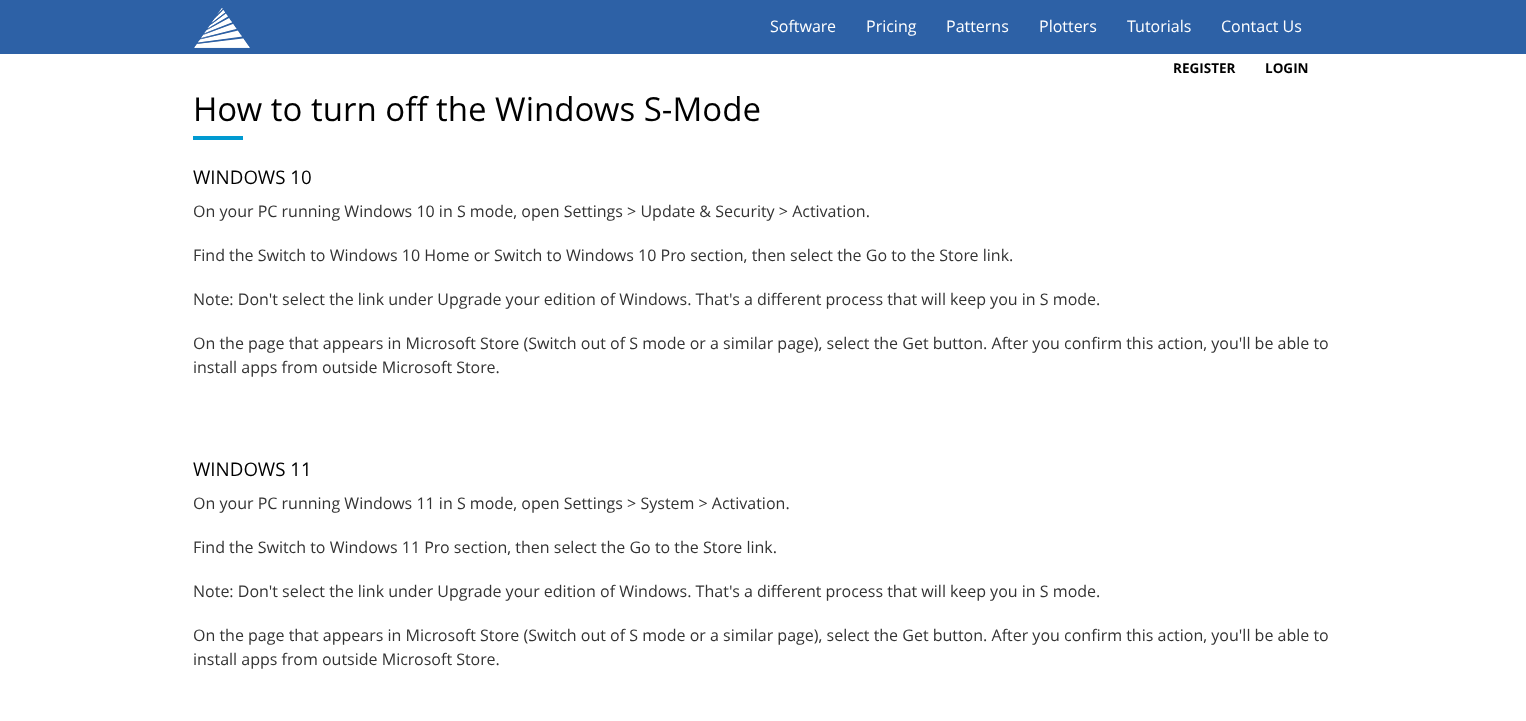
<svg xmlns="http://www.w3.org/2000/svg" width="1526" height="721" viewBox="0 0 1526 721">
  <style>
    .t1 { font: 16px Open Sans; fill: #fff; }
    .t2 { font: bold 13.5px Open Sans; fill: #000; }
    .t3 { font: 33px Open Sans; fill: #000; }
    .t4 { font: 18.75px Open Sans; fill: #000; }
    .t5 { font: 16px Open Sans; fill: #333; }
  </style>
  <rect width="100%" height="100%" fill="#fff"/>
  <rect x="0" y="0" width="1526" height="54" fill="#2d61a6"/>
  <image x="194" y="8" width="56" height="40" href="images/1.png"/>
  <text x="770" y="32" class="t1">Software</text>
  <text x="866" y="32" class="t1">Pricing</text>
  <text x="946" y="32" class="t1">Patterns</text>
  <text x="1039" y="32" class="t1">Plotters</text>
  <text x="1127" y="32" class="t1">Tutorials</text>
  <text x="1221" y="32" class="t1">Contact Us</text>
  <text x="1173" y="73" class="t2">REGISTER</text>
  <text x="1265" y="73" class="t2">LOGIN</text>
  <text x="193" y="121" class="t3">How to turn off the Windows S-Mode</text>
  <rect x="193" y="136" width="50" height="4" fill="#009ad1"/>
  <text x="193" y="184" class="t4">WINDOWS 10</text>
  <text x="193" y="217" class="t5">On your PC running Windows 10 in S mode, open Settings &gt; Update &amp; Security &gt; Activation.</text>
  <text x="193" y="261" class="t5">Find the Switch to Windows 10 Home or Switch to Windows 10 Pro section, then select the Go to the Store link.</text>
  <text x="193" y="305" class="t5">Note: Don't select the link under Upgrade your edition of Windows. That's a different process that will keep you in S mode.</text>
  <text x="193" y="349" class="t5">On the page that appears in Microsoft Store (Switch out of S mode or a similar page), select the Get button. After you confirm this action, you'll be able to</text>
  <text x="193" y="373" class="t5">install apps from outside Microsoft Store.</text>
  <text x="193" y="476" class="t4">WINDOWS 11</text>
  <text x="193" y="509" class="t5">On your PC running Windows 11 in S mode, open Settings &gt; System &gt; Activation.</text>
  <text x="193" y="553" class="t5">Find the Switch to Windows 11 Pro section, then select the Go to the Store link.</text>
  <text x="193" y="597" class="t5">Note: Don't select the link under Upgrade your edition of Windows. That's a different process that will keep you in S mode.</text>
  <text x="193" y="641" class="t5">On the page that appears in Microsoft Store (Switch out of S mode or a similar page), select the Get button. After you confirm this action, you'll be able to</text>
  <text x="193" y="665" class="t5">install apps from outside Microsoft Store.</text>
</svg>
